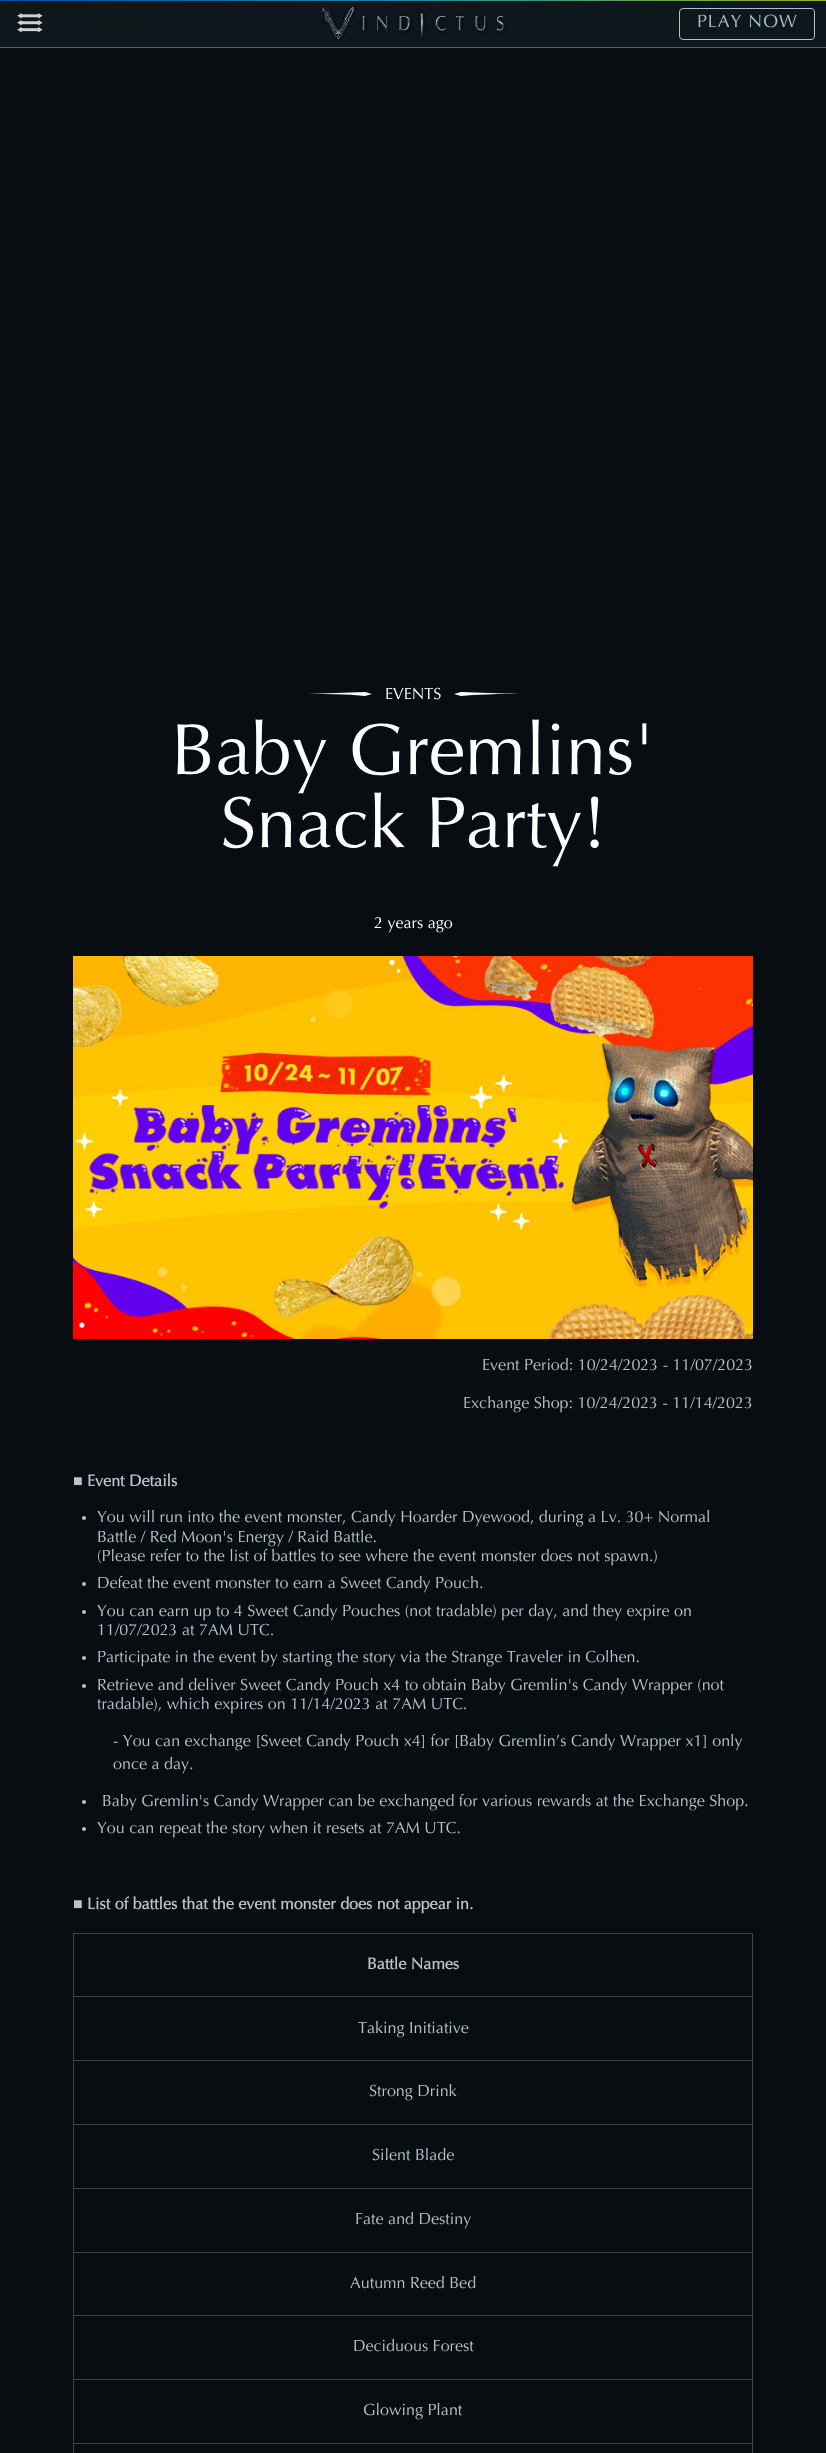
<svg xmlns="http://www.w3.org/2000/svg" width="826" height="2453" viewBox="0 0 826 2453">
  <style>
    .t1 { font: 17.75px Optima; letter-spacing: 1px; fill: #acc1c9; }
    .t2 { font: 16.1px Optima; fill: #fff; }
    .t3 { font: 72.5px Optima; fill: #fff; }
    .t4 { font: 16.1px Optima; fill: #b8c2cc; }
    .t5 { font: bold 16.1px Liberation Serif; fill: #b8c2cc; }
    .t6 { font: bold 16.1px Optima; fill: #b8c2cc; }
  </style>
  <defs>
    <linearGradient id="g1" gradientUnits="userSpaceOnUse" x1="0" y1="0.5" x2="826" y2="0.5"><stop offset="0" stop-color="#0151a6"/><stop offset="0.51" stop-color="#1e8aa5"/><stop offset="1" stop-color="#97b715"/></linearGradient>
  </defs>
  <rect width="100%" height="100%" fill="#080d11"/>
  <rect x="0" y="0" width="826" height="1" fill="url(#g1)"/>
  <rect x="0" y="1" width="826" height="46" fill="#0d171c"/>
  <rect x="0" y="47" width="826" height="1" fill="#545f72"/>
  <image x="17" y="13" width="26" height="20" href="images/1.png"/>
  <image x="321" y="6" width="185" height="34" href="images/2.png"/>
  <rect x="679.5" y="8.5" width="135" height="31" rx="3.5" fill="none" stroke="#acc1c9"/>
  <text x="697" y="27" class="t1">PLAY NOW</text>
  <path d="M365 696L372 694L365 692L308 694C327 694 346 694 365 696Z" fill="#fff"/>
  <text x="385" y="699" class="t2">EVENTS</text>
  <path d="M461 696L454 694L461 692L519 694C500 694 480 694 461 696Z" fill="#fff"/>
  <text x="171" y="774" class="t3">Baby Gremlins'</text>
  <text x="220" y="847" class="t3">Snack Party!</text>
  <text x="374" y="928" class="t2">2 years ago</text>
  <image x="73" y="956" width="680" height="383" href="images/3.png"/>
  <text x="482" y="1370" class="t4">Event Period: 10/24/2023 - 11/07/2023</text>
  <text x="463" y="1408" class="t4">Exchange Shop: 10/24/2023 - 11/14/2023</text>
  <text x="73" y="1486" class="t5">■</text>
  <text x="87" y="1486" class="t6">Event Details</text>
  <circle cx="84" cy="1518" r="2" fill="#b8c2cc"/>
  <text x="97" y="1522" class="t4">You will run into the event monster, Candy Hoarder Dyewood, during a Lv. 30+ Normal</text>
  <text x="97" y="1542" class="t4">Battle / Red Moon's Energy / Raid Battle.</text>
  <text x="97" y="1561" class="t4">(Please refer to the list of battles to see where the event monster does not spawn.)</text>
  <circle cx="84" cy="1584" r="2" fill="#b8c2cc"/>
  <text x="97" y="1588" class="t4">Defeat the event monster to earn a Sweet Candy Pouch.</text>
  <circle cx="84" cy="1612" r="2" fill="#b8c2cc"/>
  <text x="97" y="1616" class="t4">You can earn up to 4 Sweet Candy Pouches (not tradable) per day, and they expire on</text>
  <text x="97" y="1635" class="t4">11/07/2023 at 7AM UTC.</text>
  <circle cx="84" cy="1658" r="2" fill="#b8c2cc"/>
  <text x="97" y="1662" class="t4">Participate in the event by starting the story via the Strange Traveler in Colhen.</text>
  <circle cx="84" cy="1686" r="2" fill="#b8c2cc"/>
  <text x="97" y="1690" class="t4">Retrieve and deliver Sweet Candy Pouch x4 to obtain Baby Gremlin's Candy Wrapper (not</text>
  <text x="97" y="1709" class="t4">tradable), which expires on 11/14/2023 at 7AM UTC.</text>
  <text x="113" y="1746" class="t4">- You can exchange [Sweet Candy Pouch x4] for [Baby Gremlin’s Candy Wrapper x1] only</text>
  <text x="113" y="1769" class="t4">once a day.</text>
  <circle cx="84" cy="1802" r="2" fill="#b8c2cc"/>
  <text x="102" y="1806" class="t4">Baby Gremlin's Candy Wrapper can be exchanged for various rewards at the Exchange Shop.</text>
  <circle cx="84" cy="1829" r="2" fill="#b8c2cc"/>
  <text x="97" y="1833" class="t4">You can repeat the story when it resets at 7AM UTC.</text>
  <text x="73" y="1909" class="t5">■</text>
  <text x="87" y="1909" class="t6">List of battles that the event monster does not appear in.</text>
  <rect x="73" y="1933" width="680" height="1" fill="#3d454e"/>
  <rect x="752" y="1933" width="1" height="520" fill="#3d454e"/>
  <rect x="73" y="1933" width="1" height="520" fill="#3d454e"/>
  <text x="367" y="1969" class="t6">Battle Names</text>
  <rect x="73" y="1996" width="680" height="1" fill="#3d454e"/>
  <text x="358" y="2033" class="t4">Taking Initiative</text>
  <rect x="73" y="2060" width="680" height="1" fill="#3d454e"/>
  <text x="369" y="2096" class="t4">Strong Drink</text>
  <rect x="73" y="2124" width="680" height="1" fill="#3d454e"/>
  <text x="372" y="2160" class="t4">Silent Blade</text>
  <rect x="73" y="2188" width="680" height="1" fill="#3d454e"/>
  <text x="355" y="2224" class="t4">Fate and Destiny</text>
  <rect x="73" y="2252" width="680" height="1" fill="#3d454e"/>
  <text x="350" y="2288" class="t4">Autumn Reed Bed</text>
  <rect x="73" y="2315" width="680" height="1" fill="#3d454e"/>
  <text x="353" y="2351" class="t4">Deciduous Forest</text>
  <rect x="73" y="2379" width="680" height="1" fill="#3d454e"/>
  <text x="363" y="2415" class="t4">Glowing Plant</text>
  <rect x="73" y="2443" width="680" height="1" fill="#3d454e"/>
</svg>
